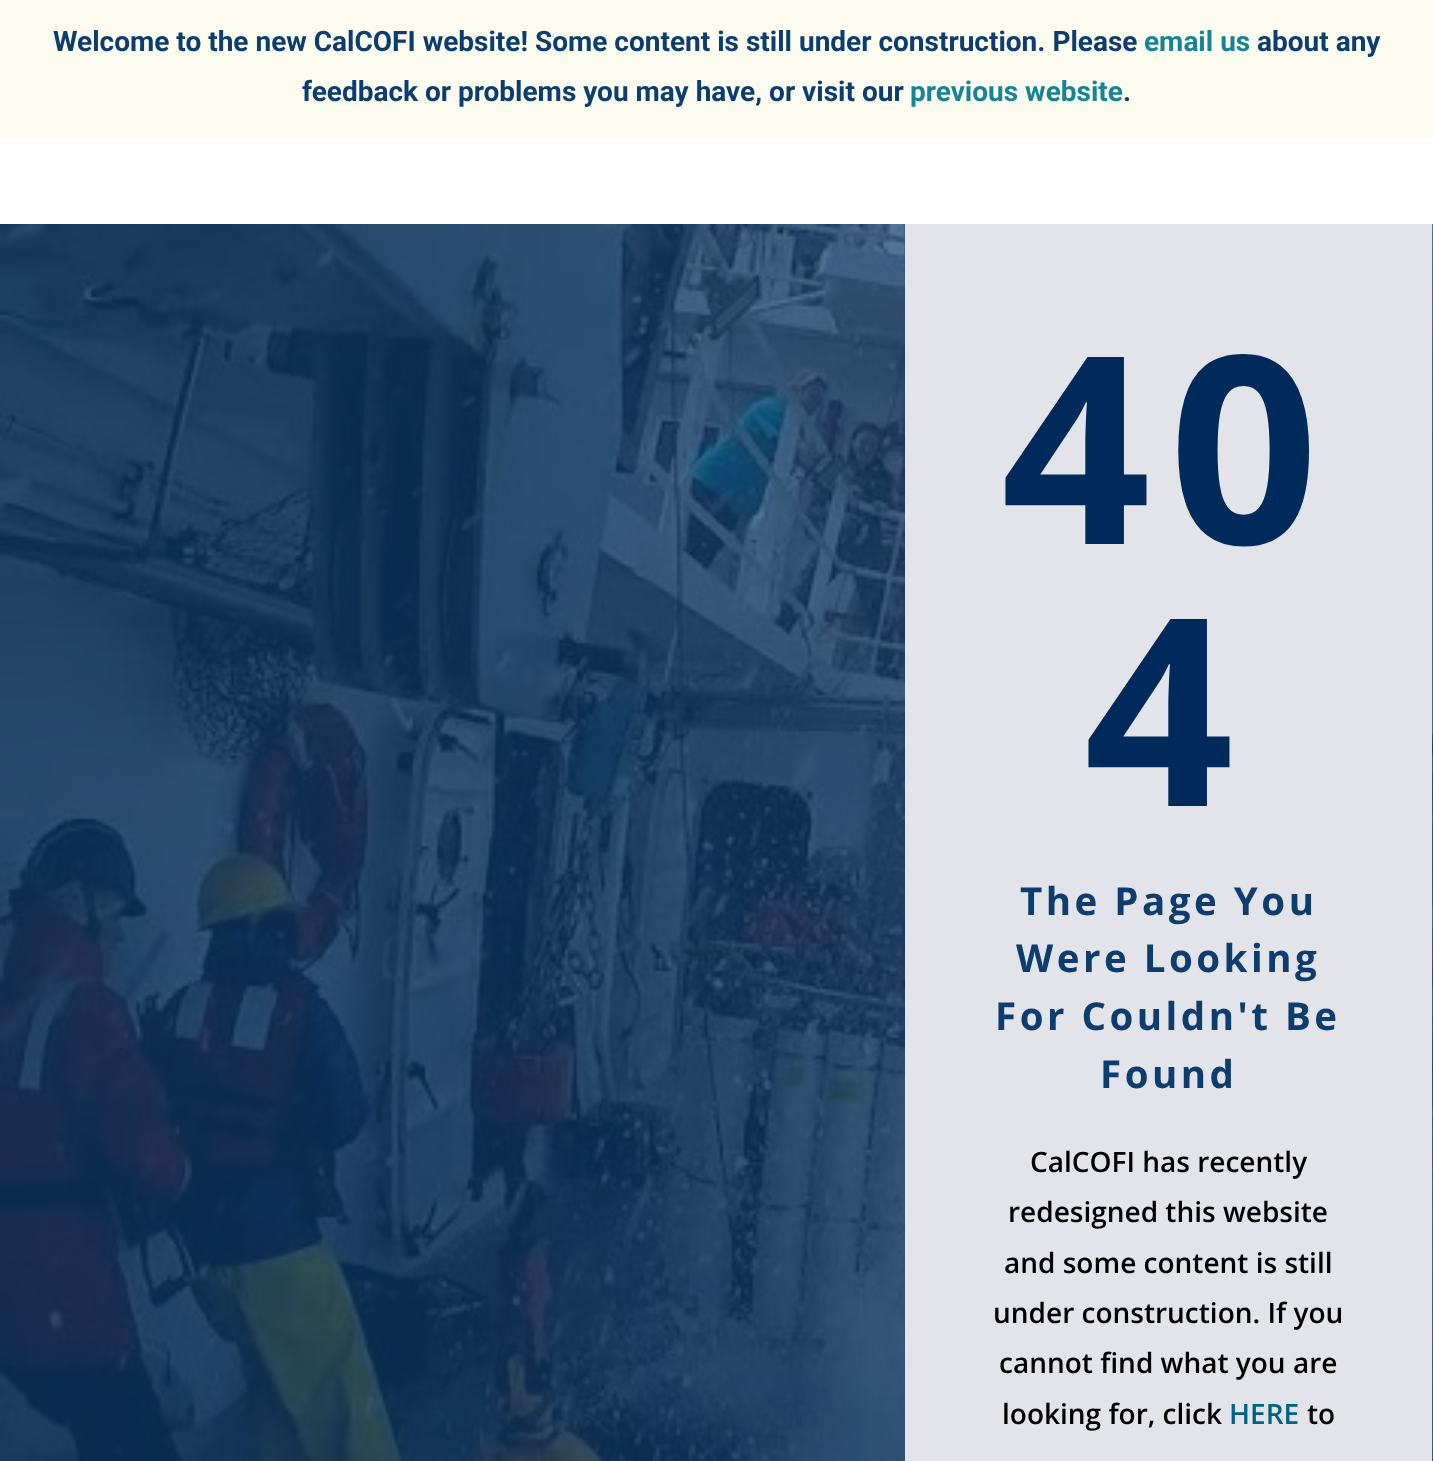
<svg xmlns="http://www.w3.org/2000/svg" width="1433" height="1461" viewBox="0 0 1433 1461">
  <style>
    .t1 { font: bold 28px Roboto; fill: #0c3d6e; }
    .t2 { font: bold 28px Roboto; fill: #178395; }
    .t3 { font: bold 262px Open Sans; letter-spacing: 18px; fill: #002a5b; }
    .t4 { font: bold 38.5px Open Sans; letter-spacing: 3.5px; fill: #0c3d6e; }
    .t5 { font: 600 28px Open Sans; fill: #000; }
    .t6 { font: 600 28px Open Sans; fill: #006189; }
  </style>
  <rect width="100%" height="100%" fill="#fff"/>
  <rect x="0" y="0" width="1433" height="137" fill="#fbfbef"/>
  <text x="53" y="51" class="t1">Welcome to the new CalCOFI website! Some content is still under construction. Please</text>
  <text x="1144" y="51" class="t2">email us</text>
  <text x="1257" y="51" class="t1">about any</text>
  <text x="302" y="101" class="t1">feedback or problems you may have, or visit our</text>
  <text x="910" y="101" class="t2">previous website</text>
  <text x="1123" y="101" class="t1">.</text>
  <image x="0" y="224" width="1433" height="1237" href="images/1.png"/>
  <rect x="905" y="224" width="527" height="1237" fill="#e3e4ea"/>
  <text x="1001" y="544" class="t3">40</text>
  <text x="1084" y="806" class="t3">4</text>
  <text x="1020" y="915" class="t4">The Page You</text>
  <text x="1016" y="972" class="t4">Were Looking</text>
  <text x="995" y="1030" class="t4">For Couldn't Be</text>
  <text x="1100" y="1088" class="t4">Found</text>
  <text x="1030" y="1172" class="t5">CalCOFI has recently</text>
  <text x="1008" y="1222" class="t5">redesigned this website</text>
  <text x="1004" y="1273" class="t5">and some content is still</text>
  <text x="993" y="1323" class="t5">under construction. If you</text>
  <text x="999" y="1373" class="t5">cannot find what you are</text>
  <text x="1002" y="1424" class="t5">looking for, click</text>
  <text x="1229" y="1424" class="t6">HERE</text>
  <text x="1307" y="1424" class="t5">to</text>
</svg>
